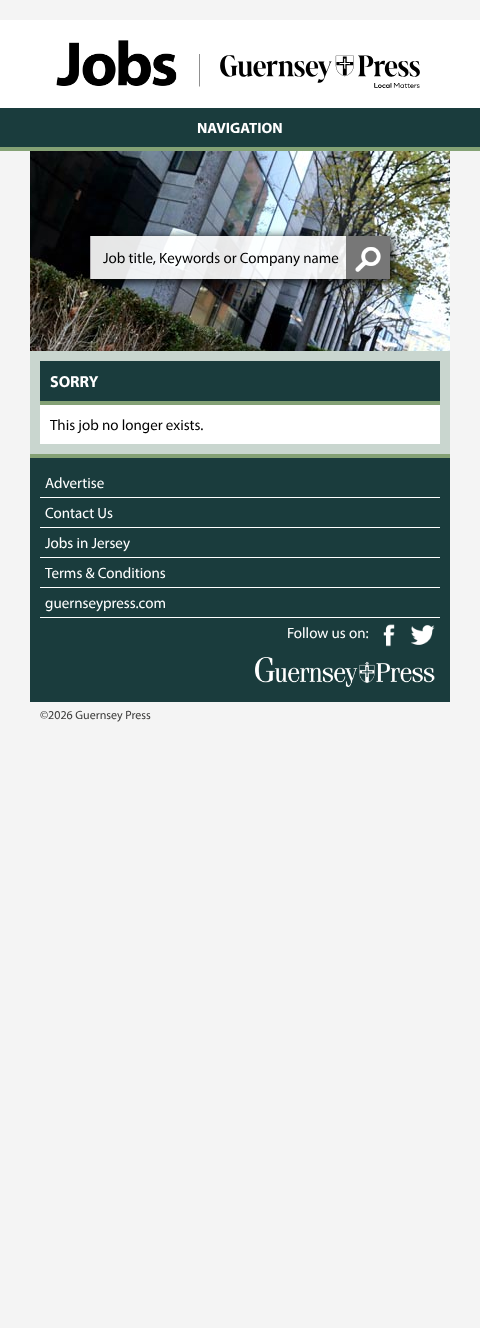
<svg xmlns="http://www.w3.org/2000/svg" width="480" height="1328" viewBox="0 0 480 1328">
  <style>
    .t1 { font: bold 15px Myriad; fill: #fff; }
    .t2 { font: 15px Myriad; fill: #000; }
    .t3 { font: bold 16px Myriad; fill: #fff; }
    .t4 { font: 15px Myriad; fill: #fff; }
    .t5 { font: 12px Myriad; fill: #3c3c3b; }
  </style>
  <defs>
    <clipPath id="clip1"><path d="M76 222H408V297H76ZM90 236H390V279H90Z" clip-rule="evenodd"/></clipPath>
  </defs>
  <rect width="100%" height="100%" fill="#f4f4f4"/>
  <rect x="0" y="20" width="480" height="88" fill="#fff"/>
  <image x="56" y="40" width="144" height="47" href="images/1.png"/>
  <image x="220" y="55" width="200" height="33" href="images/2.png"/>
  <rect x="0" y="108" width="480" height="39" fill="#1a3c3d"/>
  <rect x="0" y="147" width="480" height="4" fill="#84a175"/>
  <text x="197" y="133" class="t1">NAVIGATION</text>
  <rect x="30" y="351" width="420" height="103" fill="#c9d6cf"/>
  <image x="30" y="151" width="420" height="200" href="images/3.png"/>
  <g clip-path="url(#clip1)">
    <rect x="92" y="238" width="300" height="43" fill="#000" filter="blur(5px)"/>
  </g>
  <rect x="91" y="236" width="255" height="43" fill="#ffffffe6"/>
  <rect x="90" y="236" width="1" height="43" fill="#b2adb2"/>
  <text x="103" y="263" class="t2">Job title, Keywords or Company name</text>
  <image x="346" y="236" width="44" height="43" href="images/4.png"/>
  <rect x="40" y="405" width="400" height="39" fill="#fff"/>
  <rect x="40" y="361" width="400" height="40" fill="#1a3c3d"/>
  <rect x="40" y="401" width="400" height="4" fill="#84a175"/>
  <text x="50" y="387" class="t3">SORRY</text>
  <text x="50" y="430" class="t2">This job no longer exists.</text>
  <rect x="30" y="458" width="420" height="244" fill="#1a3c3d"/>
  <rect x="30" y="454" width="420" height="4" fill="#84a175"/>
  <rect x="40" y="497" width="400" height="1" fill="#fff"/>
  <text x="45" y="488" class="t4">Advertise</text>
  <rect x="40" y="527" width="400" height="1" fill="#fff"/>
  <text x="45" y="518" class="t4">Contact Us</text>
  <rect x="40" y="557" width="400" height="1" fill="#fff"/>
  <text x="45" y="548" class="t4">Jobs in Jersey</text>
  <rect x="40" y="587" width="400" height="1" fill="#fff"/>
  <text x="45" y="578" class="t4">Terms &amp; Conditions</text>
  <rect x="40" y="617" width="400" height="1" fill="#fff"/>
  <text x="45" y="608" class="t4">guernseypress.com</text>
  <text x="287" y="638" class="t4">Follow us on:</text>
  <image x="383" y="624" width="12" height="23" href="images/5.png"/>
  <image x="411" y="625" width="24" height="20" href="images/6.png"/>
  <image x="255" y="657" width="180" height="30" href="images/7.png"/>
  <text x="40" y="719" class="t5">©2026 Guernsey Press</text>
</svg>
